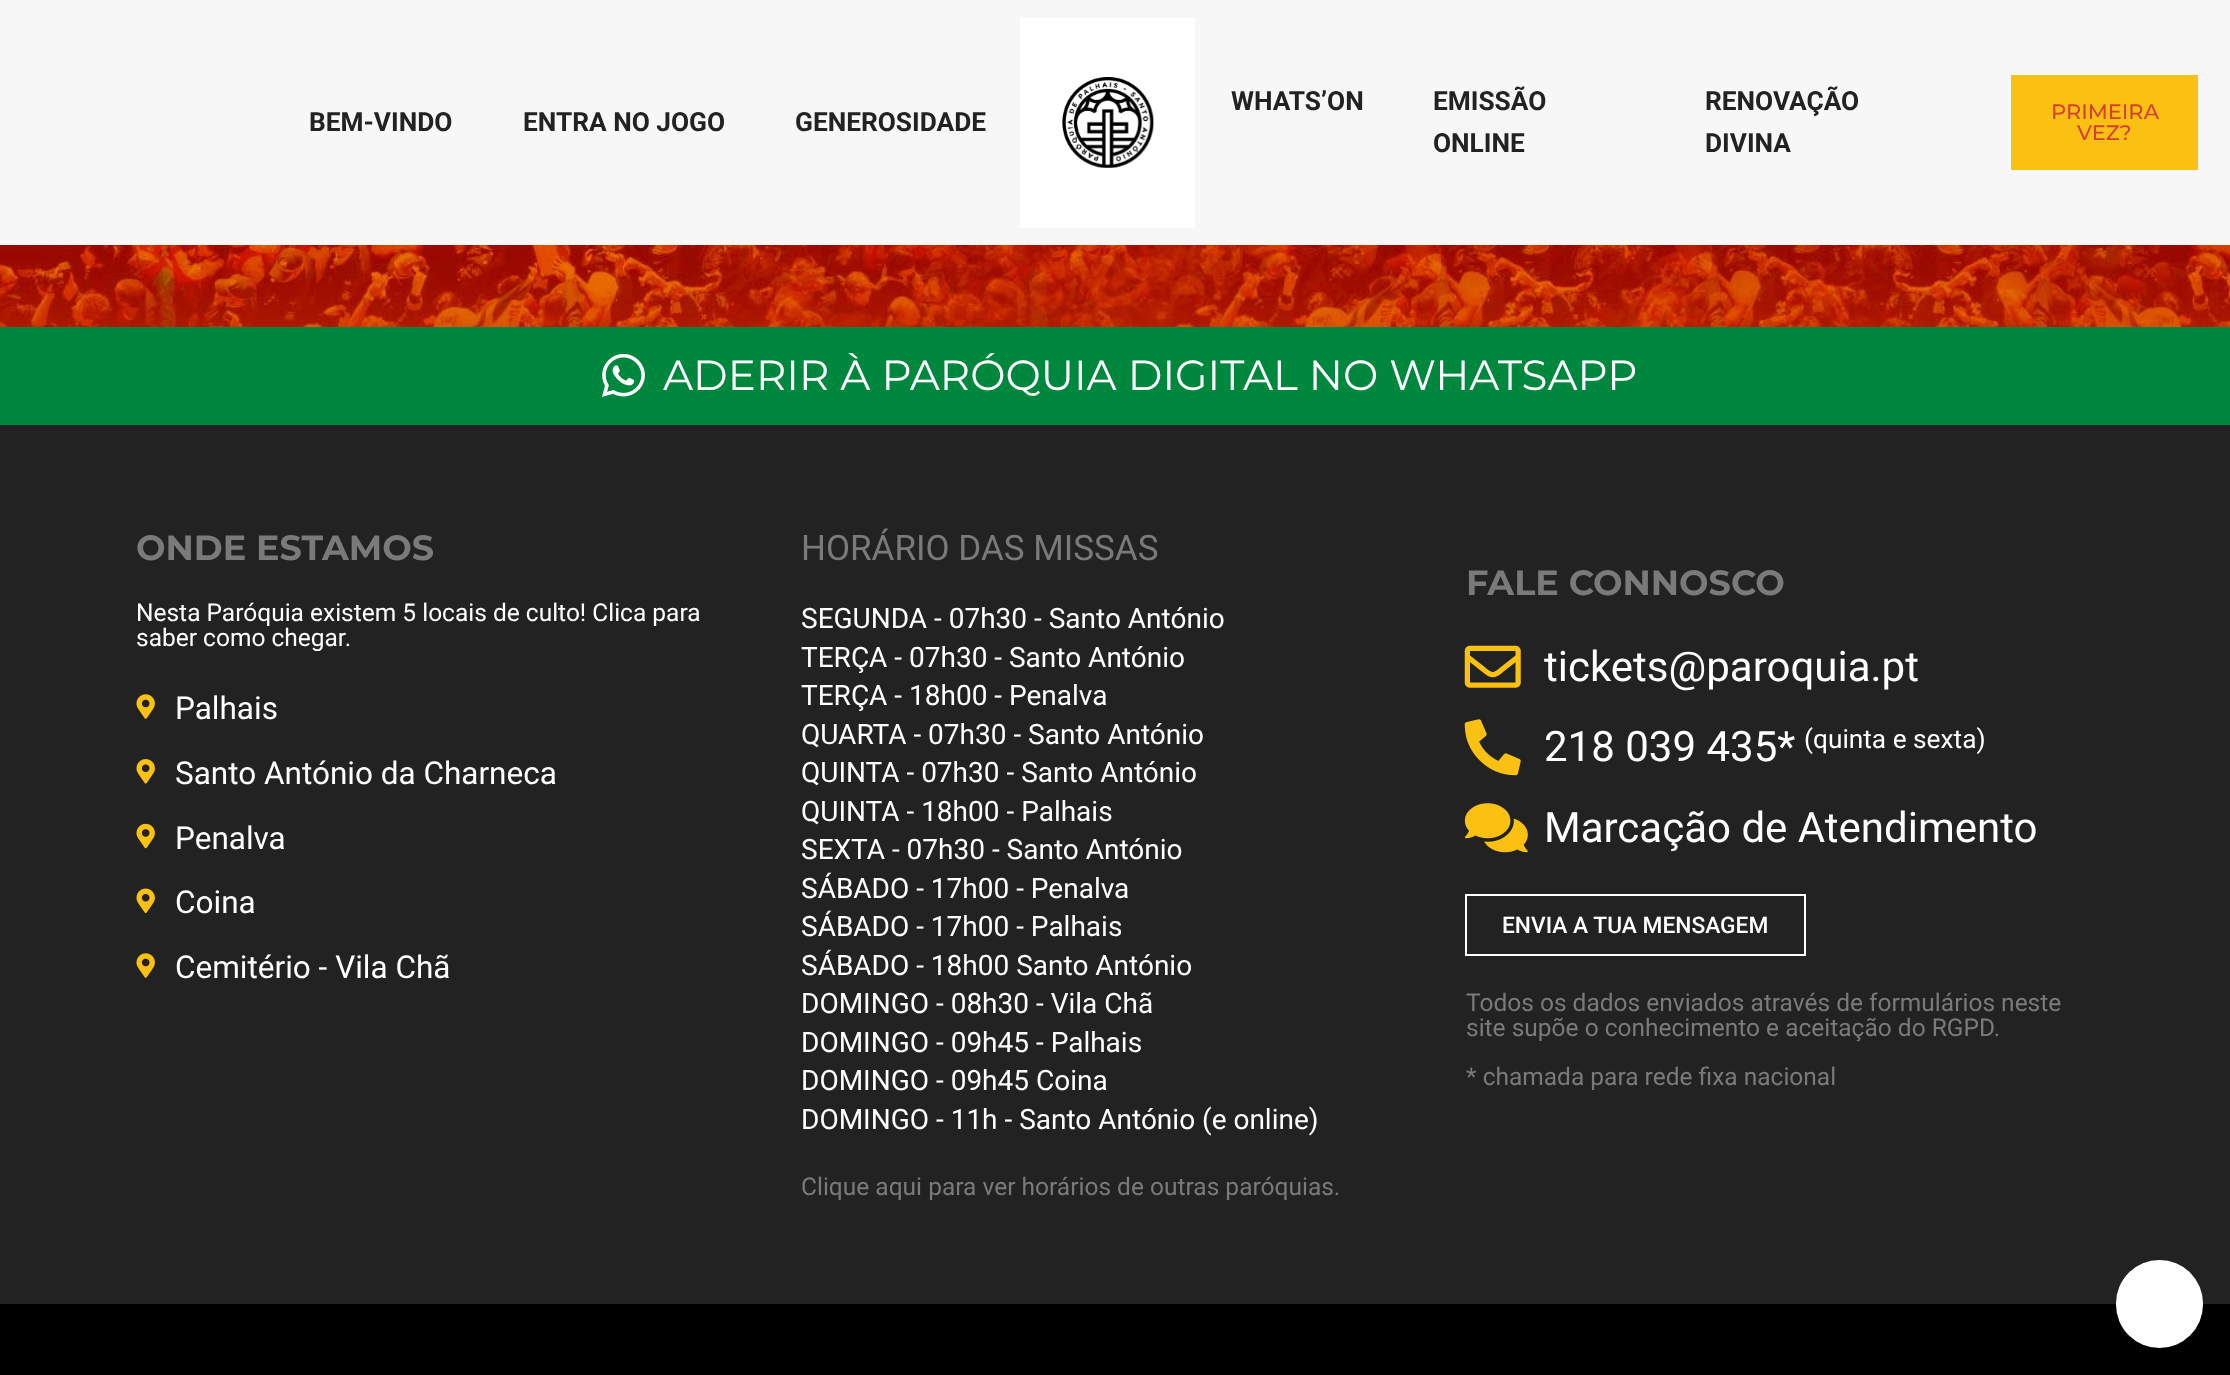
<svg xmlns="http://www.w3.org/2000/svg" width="2230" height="1375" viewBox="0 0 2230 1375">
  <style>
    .t1 { font: bold 26.25px Roboto; fill: #222; }
    .t2 { font: 500 21px Montserrat; fill: #d63f31; }
    .t3 { font: 42px Montserrat; fill: #fff; }
    .t4 { font: bold 35px Montserrat; fill: #7a7a7a; }
    .t5 { font: 24.5px Roboto; fill: #fff; }
    .t6 { font: 31.5px Roboto; fill: #fff; }
    .t7 { font: 35px Roboto; fill: #7a7a7a; }
    .t8 { font: 28px Roboto; fill: #fff; }
    .t9 { font: 24.5px Roboto; fill: #7a7a7a; }
    .t10 { font: 42px Roboto; fill: #fff; }
    .t11 { font: 26.25px Roboto; fill: #fff; }
    .t12 { font: 500 22.75px Roboto; fill: #fff; }
  </style>
  <rect width="100%" height="100%" fill="#222"/>
  <rect x="0" y="0" width="2230" height="245" fill="#f7f7f7"/>
  <text x="309" y="131" class="t1">BEM-VINDO</text>
  <text x="523" y="131" class="t1">ENTRA NO JOGO</text>
  <text x="795" y="131" class="t1">GENEROSIDADE</text>
  <rect x="1020" y="18" width="175" height="210" fill="#fff"/>
  <image x="1062" y="77" width="92" height="91" href="images/1.png"/>
  <text x="1231" y="110" class="t1">WHATS’ON</text>
  <text x="1433" y="110" class="t1">EMISSÃO</text>
  <text x="1433" y="152" class="t1">ONLINE</text>
  <text x="1705" y="110" class="t1">RENOVAÇÃO</text>
  <text x="1705" y="152" class="t1">DIVINA</text>
  <rect x="2011" y="75" width="187" height="95" fill="#fbc112"/>
  <text x="2051" y="119" class="t2">PRIMEIRA</text>
  <text x="2077" y="140" class="t2">VEZ?</text>
  <image x="0" y="245" width="2230" height="82" href="images/2.png"/>
  <rect x="0" y="327" width="2230" height="98" fill="#00873e"/>
  <image x="602" y="353" width="43" height="44" href="images/3.png"/>
  <text x="663" y="390" class="t3">ADERIR À PARÓQUIA DIGITAL NO WHATSAPP</text>
  <text x="136" y="560" class="t4">ONDE ESTAMOS</text>
  <text x="136" y="621" class="t5">Nesta Paróquia existem 5 locais de culto! Clica para</text>
  <text x="136" y="646" class="t5">saber como chegar.</text>
  <image x="136" y="694" width="19" height="25" href="images/4.png"/>
  <text x="175" y="719" class="t6">Palhais</text>
  <image x="136" y="759" width="19" height="25" href="images/5.png"/>
  <text x="175" y="784" class="t6">Santo António da Charneca</text>
  <image x="136" y="823" width="19" height="26" href="images/6.png"/>
  <text x="175" y="849" class="t6">Penalva</text>
  <image x="136" y="888" width="19" height="25" href="images/7.png"/>
  <text x="175" y="913" class="t6">Coina</text>
  <image x="136" y="953" width="19" height="25" href="images/4.png"/>
  <text x="175" y="978" class="t6">Cemitério - Vila Chã</text>
  <text x="801" y="560" class="t7">HORÁRIO DAS MISSAS</text>
  <text x="801" y="628" class="t8">SEGUNDA - 07h30 - Santo António</text>
  <text x="801" y="667" class="t8">TERÇA - 07h30 - Santo António</text>
  <text x="801" y="705" class="t8">TERÇA - 18h00 - Penalva</text>
  <text x="801" y="744" class="t8">QUARTA - 07h30 - Santo António</text>
  <text x="801" y="782" class="t8">QUINTA - 07h30 - Santo António</text>
  <text x="801" y="821" class="t8">QUINTA - 18h00 - Palhais</text>
  <text x="801" y="859" class="t8">SEXTA - 07h30 - Santo António</text>
  <text x="801" y="898" class="t8">SÁBADO - 17h00 - Penalva</text>
  <text x="801" y="936" class="t8">SÁBADO - 17h00 - Palhais</text>
  <text x="801" y="975" class="t8">SÁBADO - 18h00 Santo António</text>
  <text x="801" y="1013" class="t8">DOMINGO - 08h30 - Vila Chã</text>
  <text x="801" y="1052" class="t8">DOMINGO - 09h45 - Palhais</text>
  <text x="801" y="1090" class="t8">DOMINGO - 09h45 Coina</text>
  <text x="801" y="1129" class="t8">DOMINGO - 11h - Santo António (e online)</text>
  <text x="801" y="1195" class="t9">Clique aqui para ver horários de outras paróquias.</text>
  <text x="1466" y="595" class="t4">FALE CONNOSCO</text>
  <image x="1464" y="645" width="57" height="43" href="images/8.png"/>
  <text x="1544" y="681" class="t10">tickets@paroquia.pt</text>
  <image x="1464" y="719" width="57" height="57" href="images/9.png"/>
  <text x="1544" y="761" class="t10">218 039 435*</text>
  <text x="1804" y="748" class="t11">(quinta e sexta)</text>
  <image x="1464" y="803" width="64" height="50" href="images/10.png"/>
  <text x="1544" y="842" class="t10">Marcação de Atendimento</text>
  <rect x="1466" y="895" width="339" height="60" fill="none" stroke="#fff" stroke-width="2"/>
  <text x="1502" y="933" class="t12">ENVIA A TUA MENSAGEM</text>
  <text x="1466" y="1011" class="t9">Todos os dados enviados através de formulários neste</text>
  <text x="1466" y="1036" class="t9">site supõe o conhecimento e aceitação do RGPD.</text>
  <text x="1466" y="1085" class="t9">* chamada para rede fixa nacional</text>
  <rect x="0" y="1304" width="2230" height="71" fill="#000"/>
  <rect x="2116" y="1260" width="87" height="88" rx="43.5" fill="#fefeff"/>
</svg>
